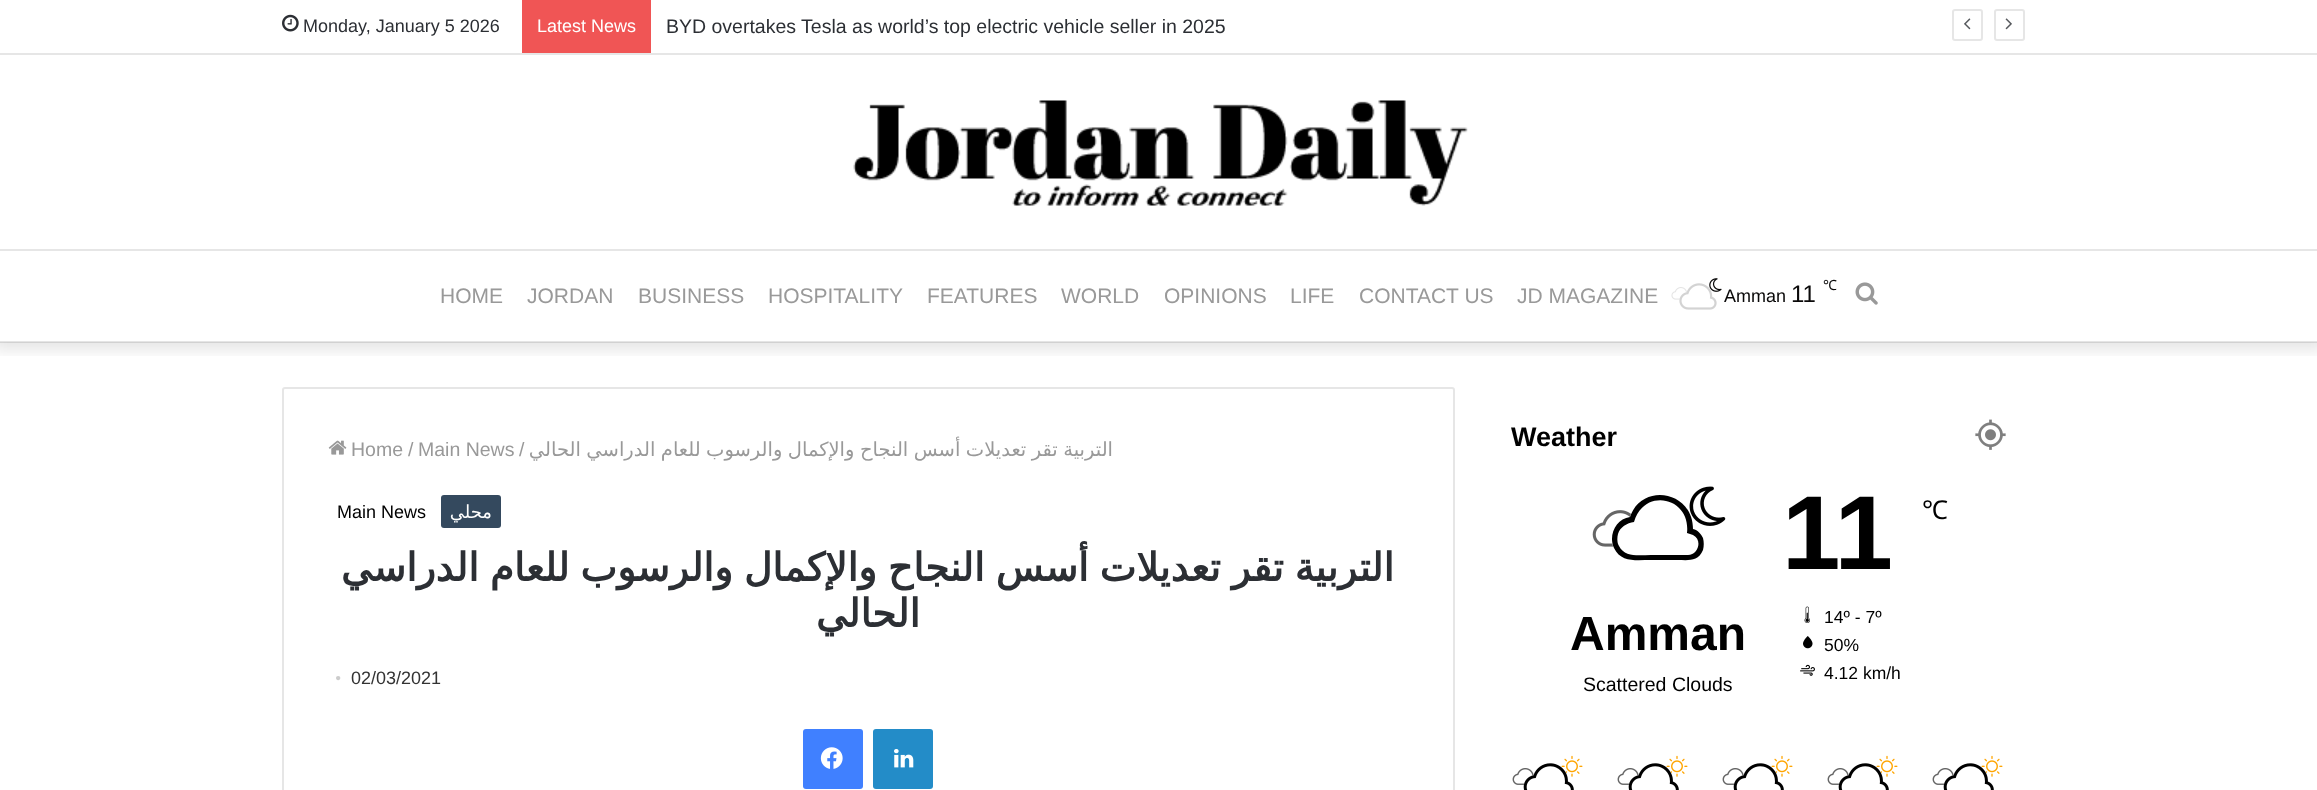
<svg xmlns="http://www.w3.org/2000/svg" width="2317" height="790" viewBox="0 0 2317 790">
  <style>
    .t1 { font: 18px Liberation Sans; fill: #2c2f34; }
    .t2 { font: 18px Liberation Sans; fill: #fff; }
    .t3 { font: 19.5px Liberation Sans; fill: #2c2f34; }
    .t4 { font: 21px Liberation Sans; fill: #999; }
    .t5 { font: 18px Liberation Sans; fill: #0a0909; }
    .t6 { font: 24px Liberation Sans; fill: #0a0909; }
    .t7 { font: 14px Noto Sans; fill: #0a0909; }
    .t8 { font: 19.5px Liberation Sans; fill: #999; }
    .t9 { font: 19.5px DejaVu Sans; direction: rtl; fill: #999; }
    .t10 { font: 18px Liberation Sans; fill: #000; }
    .t11 { font: 18px DejaVu Sans; direction: rtl; fill: #fff; }
    .t12 { font: bold 39px DejaVu Sans; direction: rtl; fill: #2c2f34; }
    .t13 { font: 18px Liberation Serif; fill: #ccc; }
    .t14 { font: 18px Liberation Sans; fill: #333; }
    .t15 { font: bold 27px Liberation Sans; fill: #000; }
    .t16 { font: bold 48px Liberation Sans; fill: #000; }
    .t17 { font: 19.5px Liberation Sans; fill: #000; }
    .t18 { font: bold 105px Liberation Sans; fill: #000; }
    .t19 { font: 26px Noto Sans; fill: #000; }
    .t20 { font: 17.5px Liberation Sans; fill: #000; }
  </style>
  <defs>
    <clipPath id="clip1"><rect x="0" y="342" width="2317" height="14"/></clipPath>
  </defs>
  <rect width="100%" height="100%" fill="#fff"/>
  <g clip-path="url(#clip1)">
    <rect x="-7" y="-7" width="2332" height="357" fill="#0000001a" filter="blur(7.5px)"/>
  </g>
  <rect x="0" y="53" width="2317" height="2" fill="#e6e6e6"/>
  <image x="282" y="14" width="17" height="18" href="images/1.png"/>
  <text x="303" y="32" class="t1">Monday, January 5 2026</text>
  <rect x="522" y="0" width="129" height="53" fill="#f05555"/>
  <text x="537" y="32" class="t2">Latest News</text>
  <text x="666" y="33" class="t3">BYD overtakes Tesla as world’s top electric vehicle seller in 2025</text>
  <rect x="1953" y="10" width="29" height="30" rx="2" fill="none" stroke="#e6e6e6" stroke-width="2"/>
  <image x="1964" y="18" width="7" height="12" href="images/2.png"/>
  <rect x="1995" y="10" width="29" height="30" rx="2" fill="none" stroke="#e6e6e6" stroke-width="2"/>
  <image x="2005" y="18" width="7" height="12" href="images/3.png"/>
  <image x="853" y="100" width="615" height="106" href="images/4.png"/>
  <rect x="0" y="249" width="2317" height="2" fill="#e6e6e6"/>
  <rect x="0" y="341" width="2317" height="2" fill="#0000001a"/>
  <text x="440" y="303" class="t4">HOME</text>
  <text x="527" y="303" class="t4">JORDAN</text>
  <text x="638" y="303" class="t4">BUSINESS</text>
  <text x="768" y="303" class="t4">HOSPITALITY</text>
  <text x="927" y="303" class="t4">FEATURES</text>
  <text x="1061" y="303" class="t4">WORLD</text>
  <text x="1164" y="303" class="t4">OPINIONS</text>
  <text x="1290" y="303" class="t4">LIFE</text>
  <text x="1359" y="303" class="t4">CONTACT US</text>
  <text x="1517" y="303" class="t4">JD MAGAZINE</text>
  <image x="1709" y="278" width="13" height="14" href="images/5.png"/>
  <image x="1671" y="287" width="16" height="13" href="images/7.png"/>
  <image x="1679" y="289" width="32" height="11" href="images/8.png"/>
  <image x="1679" y="283" width="38" height="27" href="images/6.png"/>
  <text x="1724" y="302" class="t5">Amman</text>
  <text x="1791" y="302" class="t6">11</text>
  <text x="1823" y="290" class="t7">℃</text>
  <image x="1855" y="282" width="23" height="23" href="images/9.png"/>
  <rect x="283" y="388" width="1171" height="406" rx="2" fill="none" stroke="#e6e6e6" stroke-width="2"/>
  <image x="328" y="440" width="19" height="15" href="images/10.png"/>
  <text x="351" y="456" class="t8">Home</text>
  <text x="408" y="456" class="t8">/</text>
  <text x="418" y="456" class="t8">Main News</text>
  <text x="519" y="456" class="t8">/</text>
  <text x="1113" y="456" word-spacing="-0.75" class="t9">التربية تقر تعديلات أسس النجاح والإكمال والرسوب للعام الدراسي الحالي</text>
  <text x="337" y="518" class="t10">Main News</text>
  <rect x="441" y="495" width="60" height="33" rx="3" fill="#34495e"/>
  <text x="492" y="518" class="t11">محلي</text>
  <text x="1394" y="581" word-spacing="-1.5" class="t12">التربية تقر تعديلات أسس النجاح والإكمال والرسوب للعام الدراسي</text>
  <text x="920" y="627" class="t12">الحالي</text>
  <text x="335" y="684" class="t13">•</text>
  <text x="351" y="684" class="t14">02/03/2021</text>
  <rect x="803" y="729" width="60" height="60" rx="3" fill="#4080ff"/>
  <image x="820" y="747" width="23" height="22" href="images/11.png"/>
  <rect x="873" y="729" width="60" height="60" rx="3" fill="#238cc8"/>
  <image x="894" y="749" width="20" height="19" href="images/12.png"/>
  <text x="1511" y="446" class="t15">Weather</text>
  <image x="1975" y="419" width="31" height="31" href="images/13.png"/>
  <image x="1592" y="510" width="39" height="37" href="images/14.png"/>
  <image x="1689" y="486" width="37" height="40" href="images/15.png"/>
  <image x="1612" y="514" width="33" height="33" href="images/16.png"/>
  <path d="M1693 529C1698 530 1701 534 1703 538C1704 542 1704 546 1703 550C1698 562 1688 560 1678 560H1651C1637 560 1621 563 1614 548C1608 535 1616 519 1630 517C1642 482 1693 491 1693 529ZM1688 555C1698 555 1703 540 1693 535L1687 533C1691 497 1644 487 1634 522C1627 523 1620 527 1618 534C1617 538 1617 543 1619 546C1625 558 1640 555 1651 555Z" fill="#000"/>
  <text x="1570" y="650" class="t16">Amman</text>
  <text x="1583" y="691" class="t17">Scattered Clouds</text>
  <text x="1782" y="569" class="t18">11</text>
  <text x="1922" y="519" class="t19">℃</text>
  <image x="1804" y="606" width="6" height="17" href="images/17.png"/>
  <text x="1824" y="623" class="t20">14º - 7º</text>
  <image x="1803" y="636" width="10" height="13" href="images/18.png"/>
  <text x="1824" y="651" class="t20">50%</text>
  <image x="1800" y="664" width="15" height="12" href="images/19.png"/>
  <text x="1824" y="679" class="t20">4.12 km/h</text>
  <image x="1561" y="755" width="22" height="22" href="images/20.png"/>
  <image x="1512" y="768" width="22" height="17" href="images/22.png"/>
  <image x="1523" y="771" width="43" height="14" href="images/23.png"/>
  <image x="1523" y="763" width="51" height="27" href="images/21.png"/>
  <image x="1666" y="755" width="22" height="22" href="images/20.png"/>
  <image x="1617" y="768" width="22" height="17" href="images/22.png"/>
  <image x="1628" y="771" width="43" height="14" href="images/23.png"/>
  <image x="1628" y="763" width="51" height="27" href="images/21.png"/>
  <image x="1771" y="755" width="22" height="22" href="images/20.png"/>
  <image x="1722" y="768" width="22" height="17" href="images/22.png"/>
  <image x="1733" y="771" width="43" height="14" href="images/23.png"/>
  <image x="1733" y="763" width="51" height="27" href="images/21.png"/>
  <image x="1876" y="755" width="22" height="22" href="images/20.png"/>
  <image x="1827" y="768" width="22" height="17" href="images/22.png"/>
  <image x="1838" y="771" width="43" height="14" href="images/23.png"/>
  <image x="1838" y="763" width="51" height="27" href="images/21.png"/>
  <image x="1981" y="755" width="22" height="22" href="images/20.png"/>
  <image x="1932" y="768" width="22" height="17" href="images/22.png"/>
  <image x="1943" y="771" width="43" height="14" href="images/23.png"/>
  <image x="1943" y="763" width="51" height="27" href="images/21.png"/>
</svg>
